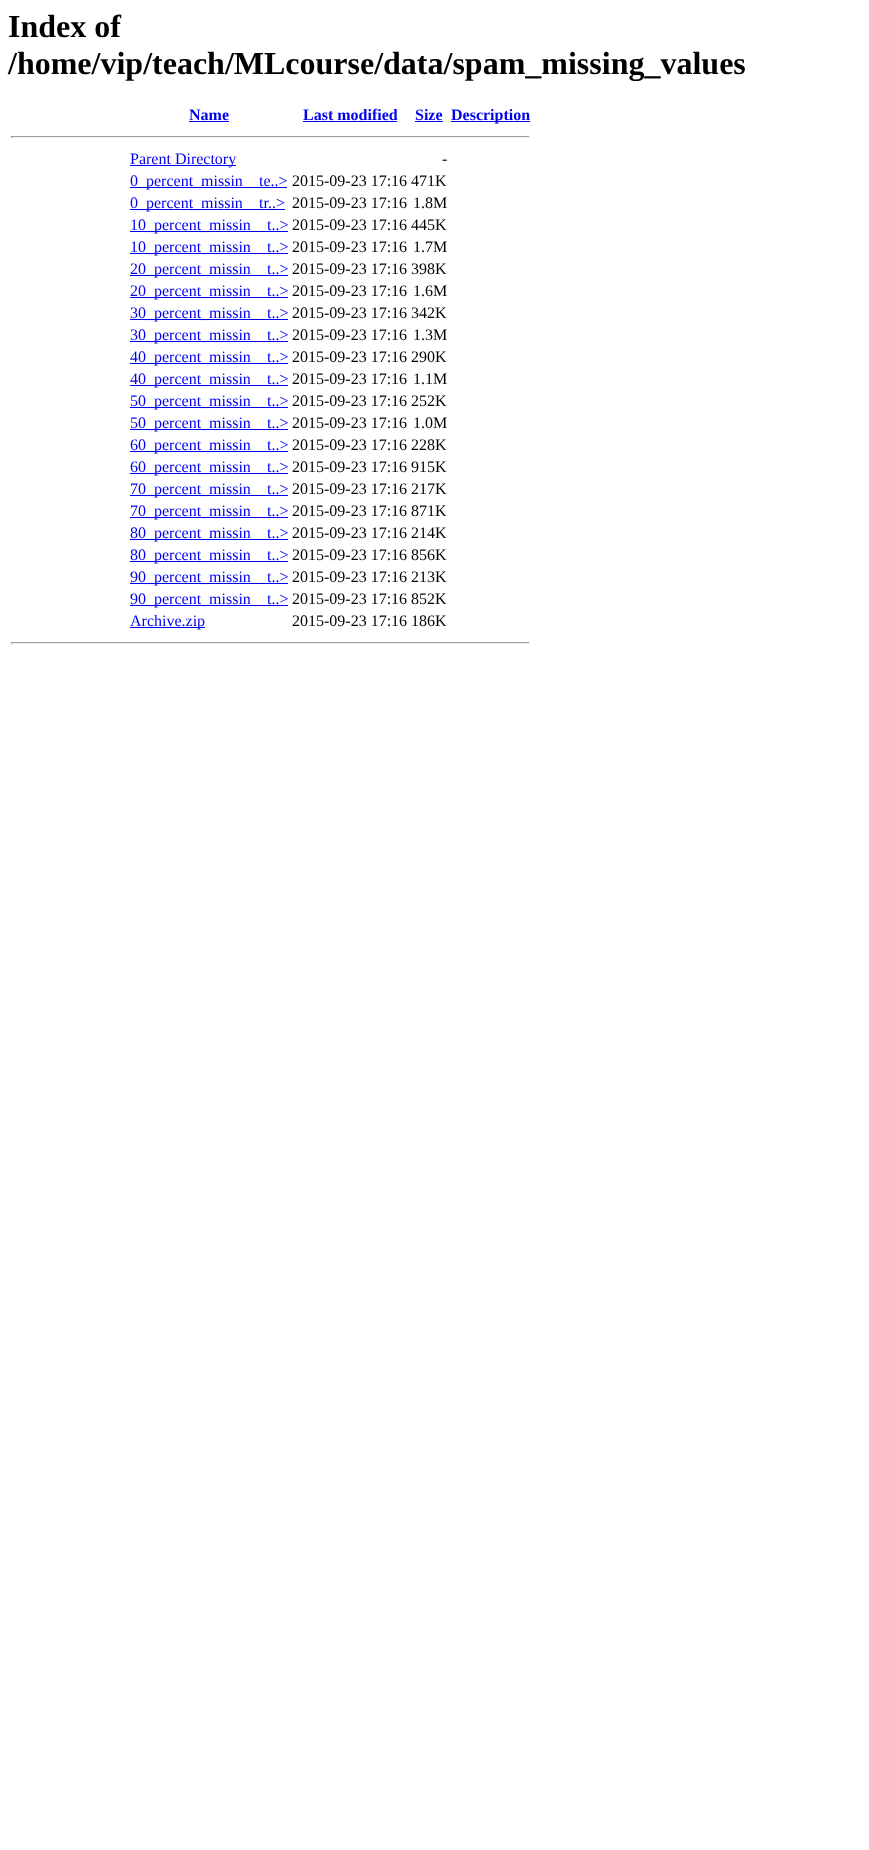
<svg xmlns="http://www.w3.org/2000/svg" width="869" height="1850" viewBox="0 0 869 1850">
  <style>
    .t1 { font: bold 32px Liberation Serif; fill: #000; }
    .t2 { font: bold 16px Liberation Serif; fill: #00e; }
    .t3 { font: 16px Liberation Serif; fill: #00e; }
    .t4 { font: 16px Liberation Serif; fill: #000; }
  </style>
  <rect width="100%" height="100%" fill="#fff"/>
  <text x="8" y="37" class="t1">Index of</text>
  <text x="8" y="74" class="t1">/home/vip/teach/MLcourse/data/spam_missing_values</text>
  <text x="189" y="120" class="t2">Name</text>
  <rect x="189" y="121" width="40" height="1" fill="#00e"/>
  <text x="303" y="120" class="t2">Last modified</text>
  <rect x="303" y="121" width="94" height="1" fill="#00e"/>
  <text x="415" y="120" class="t2">Size</text>
  <rect x="415" y="121" width="28" height="1" fill="#00e"/>
  <rect x="451" y="121" width="79" height="1" fill="#00e"/>
  <text x="451" y="120" class="t2">Description</text>
  <rect x="11" y="136" width="519" height="1" fill="#9f9f9f"/>
  <rect x="529" y="136" width="1" height="2" fill="#eee"/>
  <rect x="11" y="137" width="519" height="1" fill="#eee"/>
  <rect x="11" y="136" width="1" height="2" fill="#9f9f9f"/>
  <rect x="130" y="165" width="106" height="1" fill="#00e"/>
  <text x="130" y="164" class="t3">Parent Directory</text>
  <text x="442" y="164" class="t4">-</text>
  <rect x="130" y="187" width="157" height="1" fill="#00e"/>
  <text x="130" y="186" class="t3">0_percent_missin</text>
  <text x="259" y="186" class="t3">te..&gt;</text>
  <text x="292" y="186" class="t4">2015-09-23 17:16 471K</text>
  <rect x="130" y="209" width="155" height="1" fill="#00e"/>
  <text x="130" y="208" class="t3">0_percent_missin</text>
  <text x="259" y="208" class="t3">tr..&gt;</text>
  <text x="292" y="208" class="t4">2015-09-23 17:16</text>
  <text x="413" y="208" class="t4">1.8M</text>
  <rect x="130" y="231" width="158" height="1" fill="#00e"/>
  <text x="130" y="230" class="t3">10_percent_missin</text>
  <text x="267" y="230" class="t3">t..&gt;</text>
  <text x="292" y="230" class="t4">2015-09-23 17:16 445K</text>
  <rect x="130" y="253" width="158" height="1" fill="#00e"/>
  <text x="130" y="252" class="t3">10_percent_missin</text>
  <text x="267" y="252" class="t3">t..&gt;</text>
  <text x="292" y="252" class="t4">2015-09-23 17:16</text>
  <text x="413" y="252" class="t4">1.7M</text>
  <rect x="130" y="275" width="158" height="1" fill="#00e"/>
  <text x="130" y="274" class="t3">20_percent_missin</text>
  <text x="267" y="274" class="t3">t..&gt;</text>
  <text x="292" y="274" class="t4">2015-09-23 17:16 398K</text>
  <rect x="130" y="297" width="158" height="1" fill="#00e"/>
  <text x="130" y="296" class="t3">20_percent_missin</text>
  <text x="267" y="296" class="t3">t..&gt;</text>
  <text x="292" y="296" class="t4">2015-09-23 17:16</text>
  <text x="413" y="296" class="t4">1.6M</text>
  <rect x="130" y="319" width="158" height="1" fill="#00e"/>
  <text x="130" y="318" class="t3">30_percent_missin</text>
  <text x="267" y="318" class="t3">t..&gt;</text>
  <text x="292" y="318" class="t4">2015-09-23 17:16 342K</text>
  <rect x="130" y="341" width="158" height="1" fill="#00e"/>
  <text x="130" y="340" class="t3">30_percent_missin</text>
  <text x="267" y="340" class="t3">t..&gt;</text>
  <text x="292" y="340" class="t4">2015-09-23 17:16</text>
  <text x="413" y="340" class="t4">1.3M</text>
  <rect x="130" y="363" width="158" height="1" fill="#00e"/>
  <text x="130" y="362" class="t3">40_percent_missin</text>
  <text x="267" y="362" class="t3">t..&gt;</text>
  <text x="292" y="362" class="t4">2015-09-23 17:16 290K</text>
  <rect x="130" y="385" width="158" height="1" fill="#00e"/>
  <text x="130" y="384" class="t3">40_percent_missin</text>
  <text x="267" y="384" class="t3">t..&gt;</text>
  <text x="292" y="384" class="t4">2015-09-23 17:16</text>
  <text x="413" y="384" class="t4">1.1M</text>
  <rect x="130" y="407" width="158" height="1" fill="#00e"/>
  <text x="130" y="406" class="t3">50_percent_missin</text>
  <text x="267" y="406" class="t3">t..&gt;</text>
  <text x="292" y="406" class="t4">2015-09-23 17:16 252K</text>
  <rect x="130" y="429" width="158" height="1" fill="#00e"/>
  <text x="130" y="428" class="t3">50_percent_missin</text>
  <text x="267" y="428" class="t3">t..&gt;</text>
  <text x="292" y="428" class="t4">2015-09-23 17:16</text>
  <text x="413" y="428" class="t4">1.0M</text>
  <rect x="130" y="451" width="158" height="1" fill="#00e"/>
  <text x="130" y="450" class="t3">60_percent_missin</text>
  <text x="267" y="450" class="t3">t..&gt;</text>
  <text x="292" y="450" class="t4">2015-09-23 17:16 228K</text>
  <rect x="130" y="473" width="158" height="1" fill="#00e"/>
  <text x="130" y="472" class="t3">60_percent_missin</text>
  <text x="267" y="472" class="t3">t..&gt;</text>
  <text x="292" y="472" class="t4">2015-09-23 17:16 915K</text>
  <rect x="130" y="495" width="158" height="1" fill="#00e"/>
  <text x="130" y="494" class="t3">70_percent_missin</text>
  <text x="267" y="494" class="t3">t..&gt;</text>
  <text x="292" y="494" class="t4">2015-09-23 17:16 217K</text>
  <rect x="130" y="517" width="158" height="1" fill="#00e"/>
  <text x="130" y="516" class="t3">70_percent_missin</text>
  <text x="267" y="516" class="t3">t..&gt;</text>
  <text x="292" y="516" class="t4">2015-09-23 17:16 871K</text>
  <rect x="130" y="539" width="158" height="1" fill="#00e"/>
  <text x="130" y="538" class="t3">80_percent_missin</text>
  <text x="267" y="538" class="t3">t..&gt;</text>
  <text x="292" y="538" class="t4">2015-09-23 17:16 214K</text>
  <rect x="130" y="561" width="158" height="1" fill="#00e"/>
  <text x="130" y="560" class="t3">80_percent_missin</text>
  <text x="267" y="560" class="t3">t..&gt;</text>
  <text x="292" y="560" class="t4">2015-09-23 17:16 856K</text>
  <rect x="130" y="583" width="158" height="1" fill="#00e"/>
  <text x="130" y="582" class="t3">90_percent_missin</text>
  <text x="267" y="582" class="t3">t..&gt;</text>
  <text x="292" y="582" class="t4">2015-09-23 17:16 213K</text>
  <rect x="130" y="605" width="158" height="1" fill="#00e"/>
  <text x="130" y="604" class="t3">90_percent_missin</text>
  <text x="267" y="604" class="t3">t..&gt;</text>
  <text x="292" y="604" class="t4">2015-09-23 17:16 852K</text>
  <rect x="130" y="627" width="75" height="1" fill="#00e"/>
  <text x="130" y="626" class="t3">Archive.zip</text>
  <text x="292" y="626" class="t4">2015-09-23 17:16 186K</text>
  <rect x="11" y="642" width="519" height="1" fill="#9f9f9f"/>
  <rect x="529" y="642" width="1" height="2" fill="#eee"/>
  <rect x="11" y="643" width="519" height="1" fill="#eee"/>
  <rect x="11" y="642" width="1" height="2" fill="#9f9f9f"/>
</svg>
